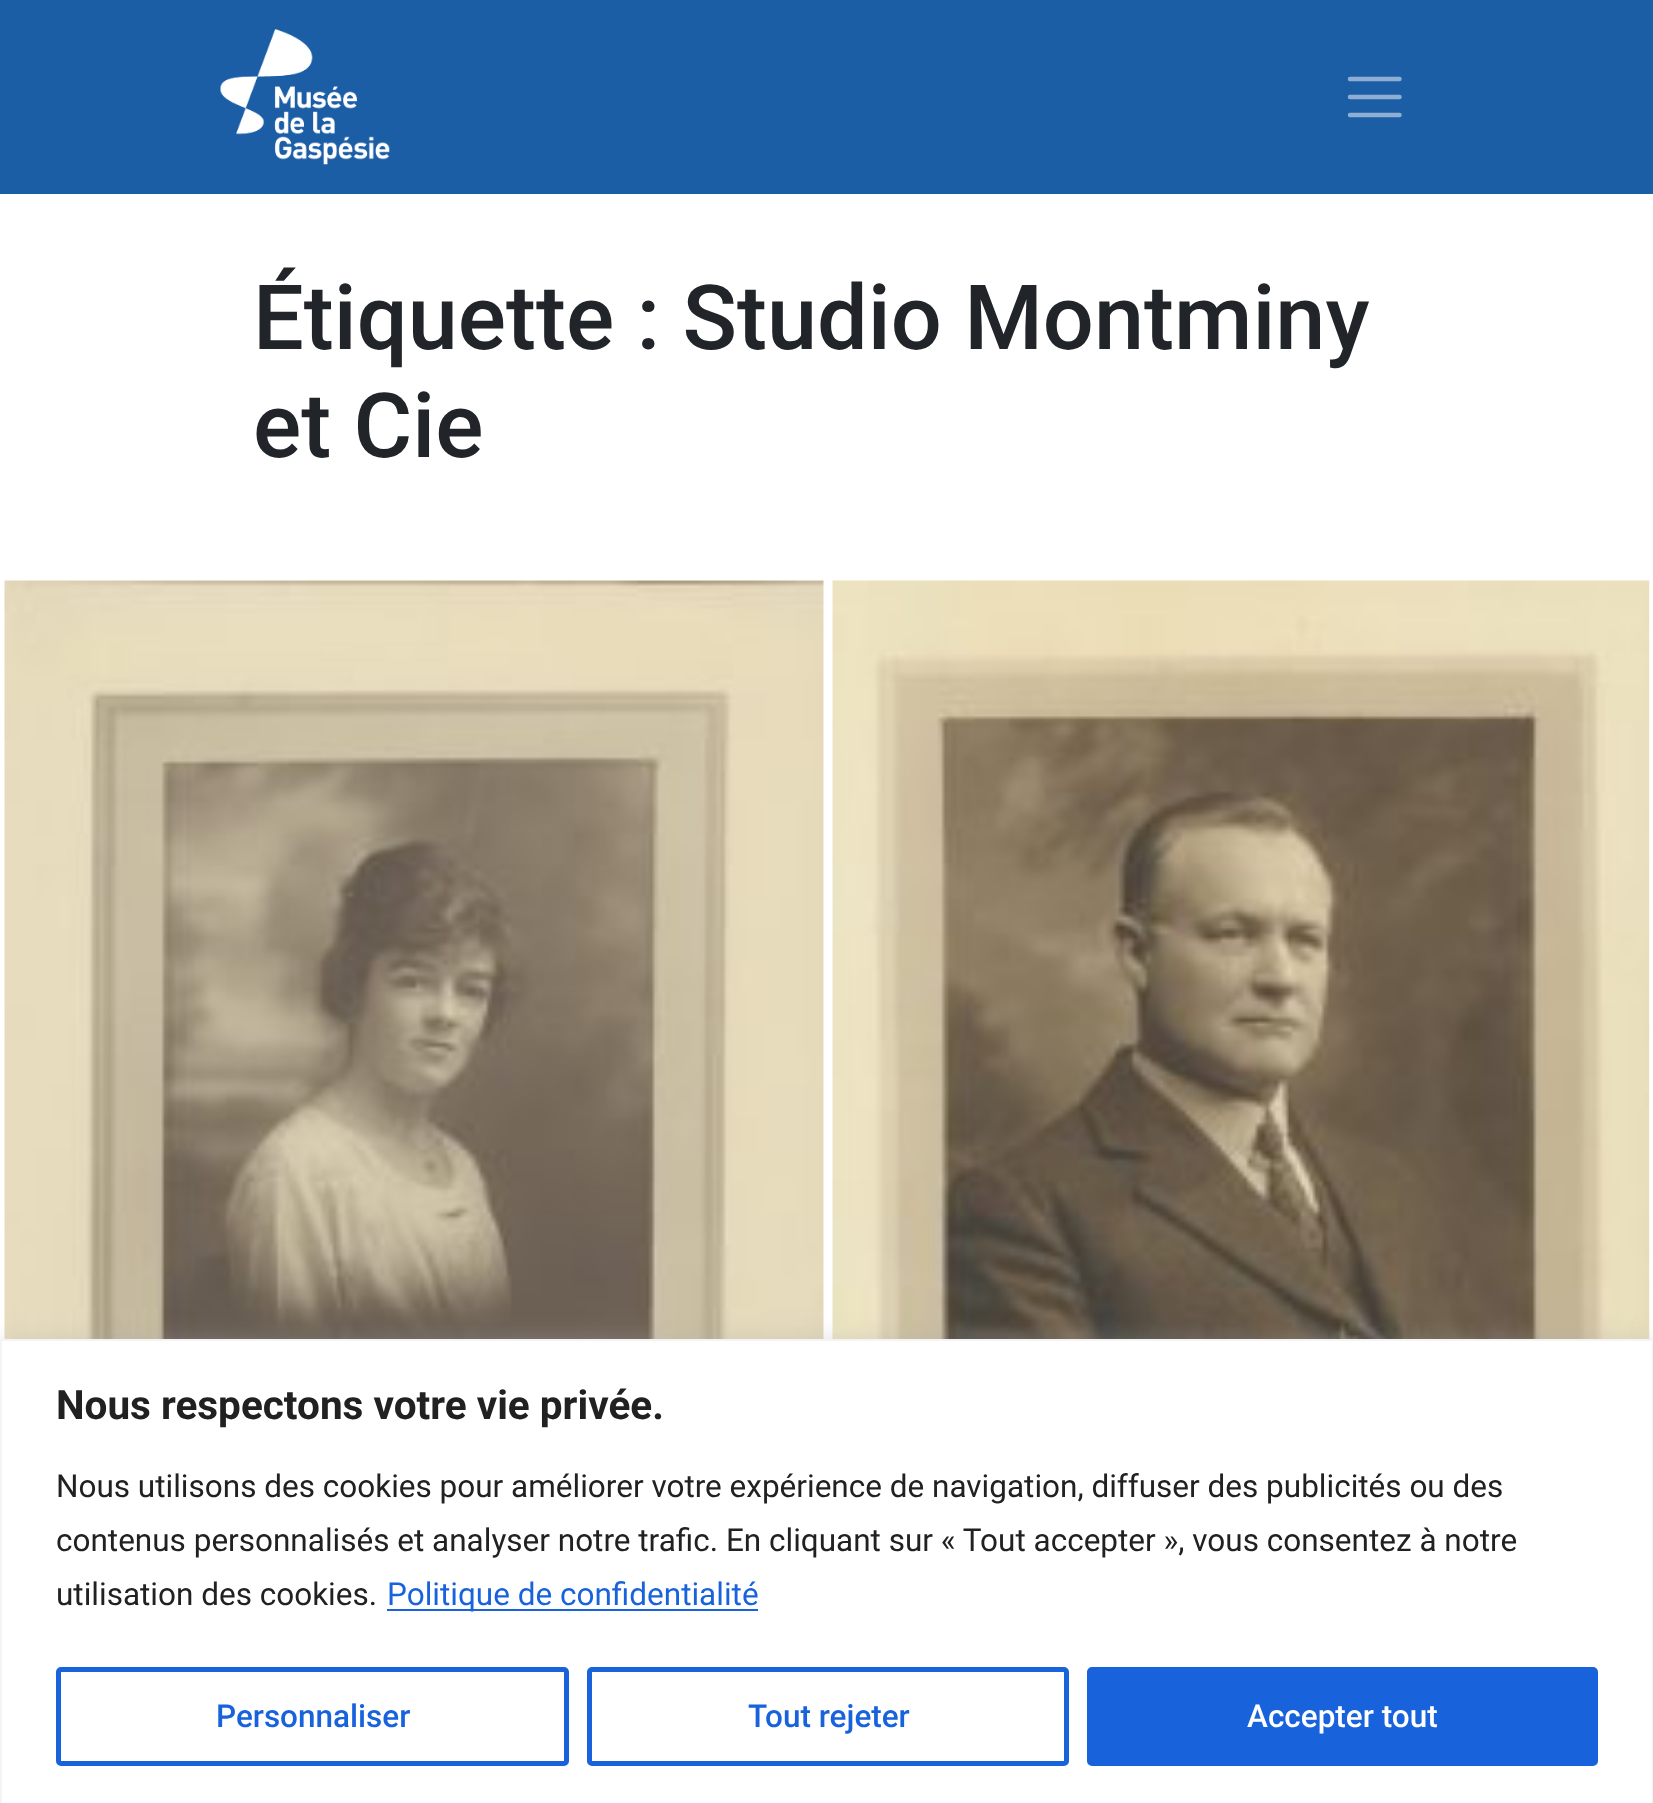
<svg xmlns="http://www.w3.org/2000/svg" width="1653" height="1803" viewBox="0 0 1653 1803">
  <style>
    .t1 { font: 500 90px Roboto; fill: #212529; }
    .t2 { font: bold 40.5px Roboto; fill: #212121; }
    .t3 { font: 31.5px Roboto; fill: #212121; }
    .t4 { font: 31.5px Roboto; fill: #1863dc; }
    .t5 { font: 500 31.5px Roboto; fill: #1863dc; }
    .t6 { font: 500 31.5px Roboto; fill: #fff; }
  </style>
  <rect width="100%" height="100%" fill="#fff"/>
  <rect x="0" y="0" width="1653" height="194" fill="#1c5ea6"/>
  <image x="220" y="29" width="170" height="136" href="images/1.png"/>
  <path d="M1350 79H1399.5M1350 97H1399.5M1350 115H1399.5" fill="none" stroke="#8eafd3" stroke-width="4.5" stroke-linecap="round"/>
  <text x="253" y="349" class="t1">Étiquette : Studio Montminy</text>
  <text x="253" y="457" class="t1">et Cie</text>
  <image x="4" y="580" width="820" height="759" href="images/2.png"/>
  <image x="832" y="580" width="818" height="759" href="images/3.png"/>
  <rect x="0" y="1337" width="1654" height="465" fill="#acabab4d" filter="blur(11px)"/>
  <rect x="1" y="1340" width="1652" height="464" fill="#fff" stroke="#f4f4f4" stroke-width="2"/>
  <text x="56" y="1419" class="t2">Nous respectons votre vie privée.</text>
  <text x="56" y="1497" class="t3">Nous utilisons des cookies pour améliorer votre expérience de navigation, diffuser des publicités ou des</text>
  <text x="56" y="1551" class="t3">contenus personnalisés et analyser notre trafic. En cliquant sur « Tout accepter », vous consentez à notre</text>
  <text x="56" y="1605" class="t3">utilisation des cookies.</text>
  <rect x="387" y="1609" width="371" height="2" fill="#1863dc"/>
  <text x="387" y="1605" class="t4">Politique de confidentialité</text>
  <rect x="58.5" y="1669.5" width="508" height="94" rx="2.5" fill="none" stroke="#1863dc" stroke-width="5"/>
  <text x="216" y="1727" class="t5">Personnaliser</text>
  <rect x="589.5" y="1669.5" width="477" height="94" rx="2.5" fill="none" stroke="#1863dc" stroke-width="5"/>
  <text x="748" y="1727" class="t5">Tout rejeter</text>
  <rect x="1089.5" y="1669.5" width="506" height="94" rx="2.5" fill="#1863dc" stroke="#1863dc" stroke-width="5"/>
  <text x="1247" y="1727" class="t6">Accepter tout</text>
</svg>
